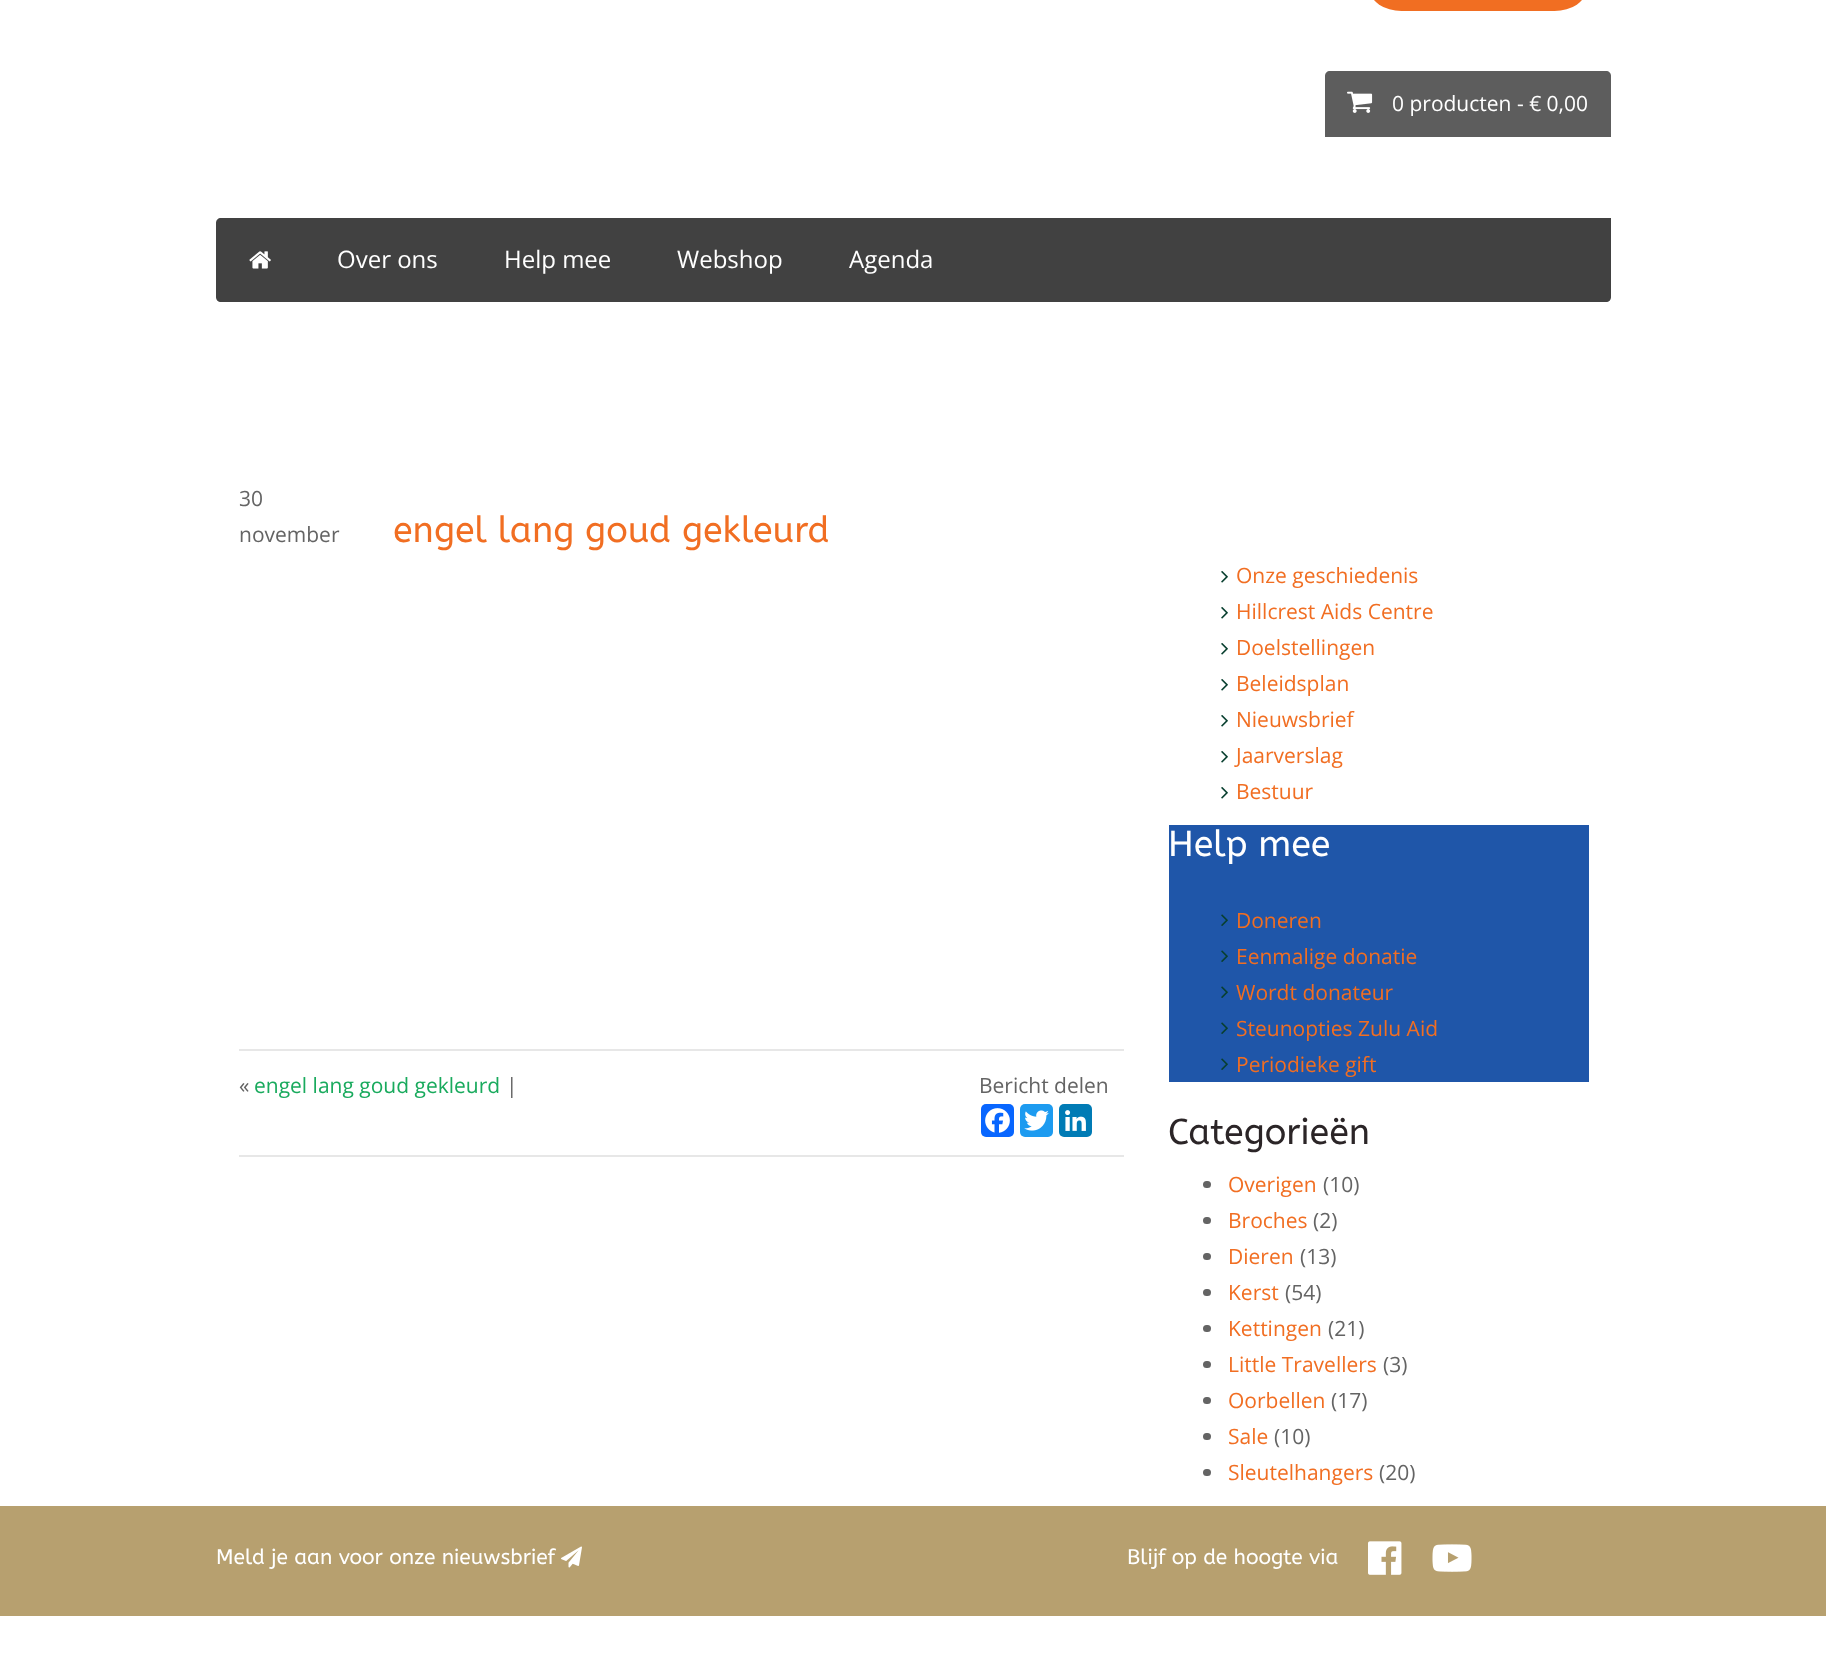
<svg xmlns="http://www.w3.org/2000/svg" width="1826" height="1676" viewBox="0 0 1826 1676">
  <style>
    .t1 { font: 21px Open Sans; fill: #fff; }
    .t2 { font: 24px Open Sans; fill: #fff; }
    .t3 { font: 21px Open Sans; fill: #646464; }
    .t4 { font: 36px ABeeZee; fill: #f16e22; }
    .t5 { font: 21px Open Sans; fill: #19aa5d; }
    .t6 { font: 21px Open Sans; fill: #f16e22; }
    .t7 { font: 36px ABeeZee; fill: #fff; }
    .t8 { font: 36px ABeeZee; fill: #2b2527; }
    .t9 { font: 21px ABeeZee; fill: #fff; }
  </style>
  <rect width="100%" height="100%" fill="#fff"/>
  <rect x="1370" y="-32" width="216" height="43" rx="31.5" fill="#f16e22"/>
  <path d="M1330 71H1606C1609 71 1611 73 1611 76V137H1325V76C1325 73 1327 71 1330 71Z" fill="#5d5d5d"/>
  <image x="1347" y="91" width="26" height="22" href="images/1.png"/>
  <text x="1392" y="111" class="t1">0 producten - € 0,00</text>
  <path d="M221 218H1611V297C1611 300 1609 302 1606 302H221C218 302 216 300 216 297V223C216 220 218 218 221 218Z" fill="#414141"/>
  <image x="249" y="251" width="22" height="18" href="images/2.png"/>
  <text x="337" y="268" class="t2">Over ons</text>
  <text x="504" y="268" class="t2">Help mee</text>
  <text x="677" y="268" class="t2">Webshop</text>
  <text x="849" y="268" class="t2">Agenda</text>
  <text x="239" y="506" class="t3">30</text>
  <text x="239" y="542" class="t3">november</text>
  <text x="393" y="542" class="t4">engel lang goud gekleurd</text>
  <rect x="239" y="1049" width="885" height="2" fill="#e7e7e7"/>
  <rect x="239" y="1155" width="885" height="2" fill="#e7e7e7"/>
  <text x="239" y="1093" class="t3">«</text>
  <text x="254" y="1093" class="t5">engel lang goud gekleurd</text>
  <text x="506" y="1093" class="t3">|</text>
  <text x="979" y="1093" class="t3">Bericht delen</text>
  <rect x="981" y="1104" width="33" height="33" rx="5" fill="#0866ff"/>
  <image x="985" y="1108" width="25" height="25" href="images/3.png"/>
  <rect x="1020" y="1104" width="33" height="33" rx="5" fill="#1d9bf0"/>
  <image x="1024" y="1110" width="25" height="21" href="images/4.png"/>
  <rect x="1059" y="1104" width="33" height="33" rx="5" fill="#007bb5"/>
  <image x="1065" y="1110" width="21" height="21" href="images/5.png"/>
  <image x="1221" y="571" width="7" height="12" href="images/6.png"/>
  <text x="1236" y="583" class="t6">Onze geschiedenis</text>
  <image x="1221" y="607" width="7" height="12" href="images/6.png"/>
  <text x="1236" y="619" class="t6">Hillcrest Aids Centre</text>
  <image x="1221" y="643" width="7" height="12" href="images/6.png"/>
  <text x="1236" y="655" class="t6">Doelstellingen</text>
  <image x="1221" y="679" width="7" height="12" href="images/6.png"/>
  <text x="1236" y="691" class="t6">Beleidsplan</text>
  <image x="1221" y="715" width="7" height="12" href="images/6.png"/>
  <text x="1236" y="727" class="t6">Nieuwsbrief</text>
  <image x="1221" y="751" width="7" height="12" href="images/6.png"/>
  <text x="1236" y="763" class="t6">Jaarverslag</text>
  <image x="1221" y="787" width="7" height="12" href="images/6.png"/>
  <text x="1236" y="799" class="t6">Bestuur</text>
  <rect x="1169" y="825" width="420" height="257" fill="#1f56a9"/>
  <text x="1168" y="856" class="t7">Help mee</text>
  <image x="1221" y="914" width="7" height="12" href="images/7.png"/>
  <text x="1236" y="928" class="t6">Doneren</text>
  <image x="1221" y="950" width="7" height="12" href="images/7.png"/>
  <text x="1236" y="964" class="t6">Eenmalige donatie</text>
  <image x="1221" y="986" width="7" height="12" href="images/7.png"/>
  <text x="1236" y="1000" class="t6">Wordt donateur</text>
  <image x="1221" y="1022" width="7" height="12" href="images/7.png"/>
  <text x="1236" y="1036" class="t6">Steunopties Zulu Aid</text>
  <image x="1221" y="1058" width="7" height="12" href="images/7.png"/>
  <text x="1236" y="1072" class="t6">Periodieke gift</text>
  <text x="1168" y="1144" class="t8">Categorieën</text>
  <rect x="1203" y="1181" width="8" height="7" rx="3.5" fill="#646464"/>
  <text x="1228" y="1192" class="t6">Overigen</text>
  <text x="1323" y="1192" class="t3">(10)</text>
  <rect x="1203" y="1217" width="8" height="7" rx="3.5" fill="#646464"/>
  <text x="1228" y="1228" class="t6">Broches</text>
  <text x="1313" y="1228" class="t3">(2)</text>
  <rect x="1203" y="1253" width="8" height="7" rx="3.5" fill="#646464"/>
  <text x="1228" y="1264" class="t6">Dieren</text>
  <text x="1300" y="1264" class="t3">(13)</text>
  <rect x="1203" y="1289" width="8" height="7" rx="3.5" fill="#646464"/>
  <text x="1228" y="1300" class="t6">Kerst</text>
  <text x="1285" y="1300" class="t3">(54)</text>
  <rect x="1203" y="1325" width="8" height="7" rx="3.5" fill="#646464"/>
  <text x="1228" y="1336" class="t6">Kettingen</text>
  <text x="1328" y="1336" class="t3">(21)</text>
  <rect x="1203" y="1361" width="8" height="7" rx="3.5" fill="#646464"/>
  <text x="1228" y="1372" class="t6">Little Travellers</text>
  <text x="1383" y="1372" class="t3">(3)</text>
  <rect x="1203" y="1397" width="8" height="7" rx="3.5" fill="#646464"/>
  <text x="1228" y="1408" class="t6">Oorbellen</text>
  <text x="1331" y="1408" class="t3">(17)</text>
  <rect x="1203" y="1433" width="8" height="7" rx="3.5" fill="#646464"/>
  <text x="1228" y="1444" class="t6">Sale</text>
  <text x="1274" y="1444" class="t3">(10)</text>
  <rect x="1203" y="1469" width="8" height="7" rx="3.5" fill="#646464"/>
  <text x="1228" y="1480" class="t6">Sleutelhangers</text>
  <text x="1379" y="1480" class="t3">(20)</text>
  <rect x="0" y="1506" width="1826" height="110" fill="#b7a06f"/>
  <text x="216" y="1564" class="t9">Meld je aan voor onze nieuwsbrief</text>
  <image x="561" y="1546" width="21" height="22" href="images/8.png"/>
  <text x="1127" y="1564" class="t9">Blijf op de hoogte via</text>
  <image x="1368" y="1541" width="34" height="34" href="images/9.png"/>
  <image x="1432" y="1544" width="40" height="28" href="images/10.png"/>
</svg>
